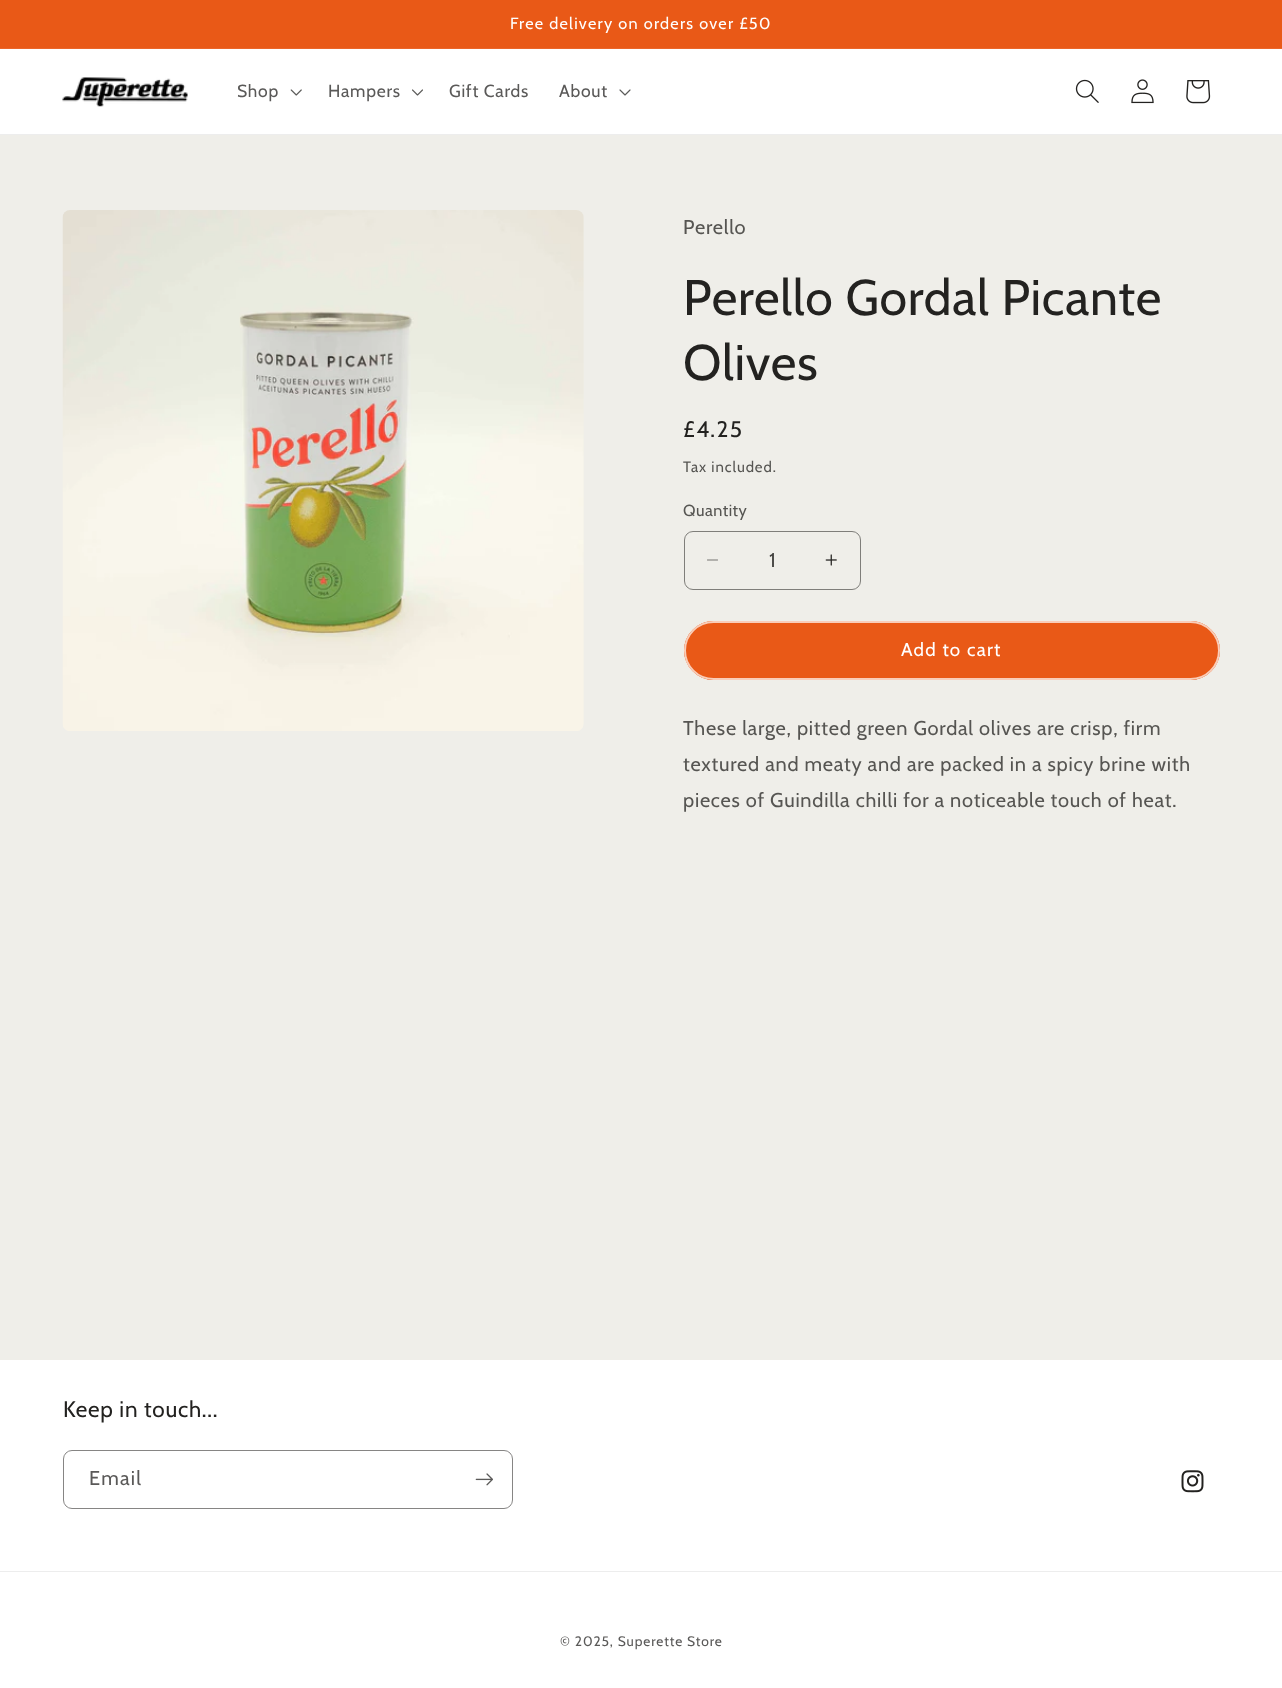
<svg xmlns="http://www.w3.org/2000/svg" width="1282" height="1688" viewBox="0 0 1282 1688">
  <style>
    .t1 { font: 16.25px Cabin; letter-spacing: 1.25px; fill: #fff; }
    .t2 { font: 17.5px Cabin; letter-spacing: 0.75px; fill: #5a5958; }
    .t3 { font: 20px Cabin; letter-spacing: 0.75px; fill: #565552; }
    .t4 { font: 50px Cabin; letter-spacing: 0.75px; fill: #232220; }
    .t5 { font: 22.5px Cabin; letter-spacing: 1.5px; fill: #232220; }
    .t6 { font: 15px Cabin; letter-spacing: 0.9px; fill: #565552; }
    .t7 { font: 16.25px Cabin; letter-spacing: 0.5px; fill: #565552; }
    .t8 { font: 20px Cabin; fill: #42413e; }
    .t9 { font: 18.75px Cabin; letter-spacing: 1.25px; fill: #fff; }
    .t10 { font: 22.5px Cabin; letter-spacing: 0.75px; fill: #232220; }
    .t11 { font: 20px Cabin; letter-spacing: 1.25px; fill: #5a5958; }
    .t12 { font: 13.75px Cabin; letter-spacing: 0.9px; fill: #5a5958; }
  </style>
  <rect width="100%" height="100%" fill="#efeee9"/>
  <rect x="0" y="0" width="1282" height="48" fill="#e95917"/>
  <rect x="0" y="48" width="1282" height="1" fill="#eb662a"/>
  <text x="510" y="29" class="t1">Free delivery on orders over £50</text>
  <rect x="0" y="49" width="1282" height="85" fill="#fff"/>
  <rect x="0" y="134" width="1282" height="1" fill="#ededed"/>
  <image x="62" y="77" width="126" height="30" href="images/1.png"/>
  <text x="237" y="97" class="t2">Shop</text>
  <image x="290" y="89" width="12" height="7" href="images/2.png"/>
  <text x="328" y="97" class="t2">Hampers</text>
  <image x="412" y="89" width="11" height="7" href="images/3.png"/>
  <text x="449" y="97" class="t2">Gift Cards</text>
  <text x="559" y="97" class="t2">About</text>
  <image x="619" y="89" width="12" height="7" href="images/4.png"/>
  <image x="1075" y="79" width="24" height="24" href="images/5.png"/>
  <image x="1131" y="79" width="23" height="25" href="images/6.png"/>
  <image x="1186" y="80" width="25" height="24" href="images/7.png"/>
  <image x="62" y="210" width="522" height="521" href="images/8.png"/>
  <text x="683" y="234" class="t3">Perello</text>
  <text x="683" y="315" class="t4">Perello Gordal Picante</text>
  <text x="683" y="380" class="t4">Olives</text>
  <text x="683" y="437" class="t5">£4.25</text>
  <text x="683" y="472" class="t6">Tax included.</text>
  <text x="683" y="516" class="t7">Quantity</text>
  <image x="707" y="559" width="11" height="2" href="images/9.png"/>
  <image x="825" y="554" width="12" height="12" href="images/10.png"/>
  <rect x="684.5" y="531.5" width="176" height="58" rx="8.5" fill="none" stroke="#7f7e7a"/>
  <text x="769" y="567" class="t8">1</text>
  <rect x="684" y="621" width="536" height="59" rx="29.5" fill="#e95917"/>
  <rect x="684.5" y="621.5" width="535" height="58" rx="29" fill="none" stroke="#e95917"/>
  <rect x="685" y="622" width="534" height="57" rx="28.5" fill="none" stroke="#ffffffb3" stroke-width="2"/>
  <text x="901" y="656" class="t9">Add to cart</text>
  <text x="683" y="735" class="t3">These large, pitted green Gordal olives are crisp, firm</text>
  <text x="683" y="771" class="t3">textured and meaty and are packed in a spicy brine with</text>
  <text x="683" y="807" class="t3">pieces of Guindilla chilli for a noticeable touch of heat.</text>
  <rect x="0" y="1360" width="1282" height="328" fill="#fff"/>
  <text x="63" y="1417" class="t10">Keep in touch...</text>
  <rect x="63.5" y="1450.5" width="449" height="58" rx="8.5" fill="none" stroke="#868584"/>
  <text x="89" y="1485" class="t11">Email</text>
  <image x="475" y="1473" width="18" height="13" href="images/11.png"/>
  <image x="1181" y="1470" width="23" height="23" href="images/12.png"/>
  <rect x="0" y="1571" width="1282" height="1" fill="#ededed"/>
  <text x="560" y="1646" class="t12">© 2025, Superette Store</text>
</svg>
